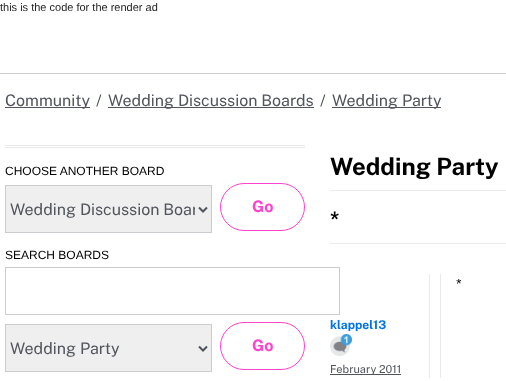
<svg xmlns="http://www.w3.org/2000/svg" width="506" height="381" viewBox="0 0 506 381">
  <style>
    .t1 { font: 11px Liberation Sans; fill: #1f1f1f; }
    .t2 { font: 16px Public Sans; fill: #51545c; }
    .t3 { font: 12px Liberation Sans; fill: #000; }
    .t4 { font: bold 16px Public Sans; fill: #ff44cb; }
    .t5 { font: bold 24px Public Sans; fill: #000; }
    .t6 { font: bold 20px Public Sans; fill: #000; }
    .t7 { font: 14px Public Sans; fill: #000; }
    .t8 { font: bold 12px Public Sans; fill: #0073e6; }
    .t9 { font: 11px Public Sans; fill: #51545c; }
  </style>
  <defs>
    <clipPath id="clip1"><rect x="10" y="199" width="185" height="21"/></clipPath>
  </defs>
  <rect width="100%" height="100%" fill="#fff"/>
  <text x="0" y="11" class="t1">this is the code for the render ad</text>
  <rect x="0" y="73" width="506" height="1" fill="#ccc"/>
  <rect x="5" y="107" width="85" height="1" fill="#51545c"/>
  <text x="5" y="106" class="t2">Community</text>
  <text x="96" y="106" class="t2">/</text>
  <rect x="108" y="107" width="206" height="1" fill="#51545c"/>
  <text x="108" y="106" class="t2">Wedding Discussion Boards</text>
  <text x="320" y="106" class="t2">/</text>
  <rect x="332" y="107" width="109" height="1" fill="#51545c"/>
  <text x="332" y="106" class="t2">Wedding Party</text>
  <rect x="5" y="145" width="300" height="1" fill="#e9e9e9"/>
  <rect x="5" y="147" width="300" height="1" fill="#e9e9e9"/>
  <text x="5" y="175" class="t3">CHOOSE ANOTHER BOARD</text>
  <rect x="5.5" y="185.5" width="206" height="47" fill="#efefef" stroke="#caccd0"/>
  <path d="M199 207.5L203 211.5L207 207.5" fill="none" stroke="#51545c" stroke-width="2"/>
  <g clip-path="url(#clip1)">
    <text x="10" y="215" class="t2">Wedding Discussion Boar</text>
  </g>
  <rect x="220.5" y="183.5" width="84" height="47" rx="23.5" fill="none" stroke="#ff44cb"/>
  <text x="252" y="212" class="t4">Go</text>
  <text x="5" y="259" class="t3">SEARCH BOARDS</text>
  <rect x="5.5" y="267.5" width="334" height="47" fill="none" stroke="#caccd0"/>
  <rect x="5.5" y="324.5" width="206" height="47" fill="#efefef" stroke="#caccd0"/>
  <path d="M199 346.5L203 350.5L207 346.5" fill="none" stroke="#51545c" stroke-width="2"/>
  <text x="10" y="354" class="t2">Wedding Party</text>
  <rect x="220.5" y="322.5" width="84" height="47" rx="23.5" fill="none" stroke="#ff44cb"/>
  <text x="252" y="351" class="t4">Go</text>
  <rect x="330" y="190" width="176" height="1" fill="#e9e9e9"/>
  <text x="330" y="175" class="t5">Wedding Party</text>
  <rect x="330" y="243" width="176" height="1" fill="#e9e9e9"/>
  <text x="330" y="226" class="t6">*</text>
  <rect x="440" y="274" width="1" height="107" fill="#e9e9e9"/>
  <text x="456" y="289" class="t7">*</text>
  <rect x="440" y="378" width="1" height="3" fill="#fff"/>
  <rect x="429" y="274" width="1" height="104" fill="#e9e9e9"/>
  <text x="330" y="329" class="t8">klappel13</text>
  <image x="330" y="334" width="22" height="22" href="images/1.png"/>
  <rect x="330" y="374" width="71" height="1" fill="#51545c"/>
  <text x="330" y="373" class="t9">February 2011</text>
</svg>
